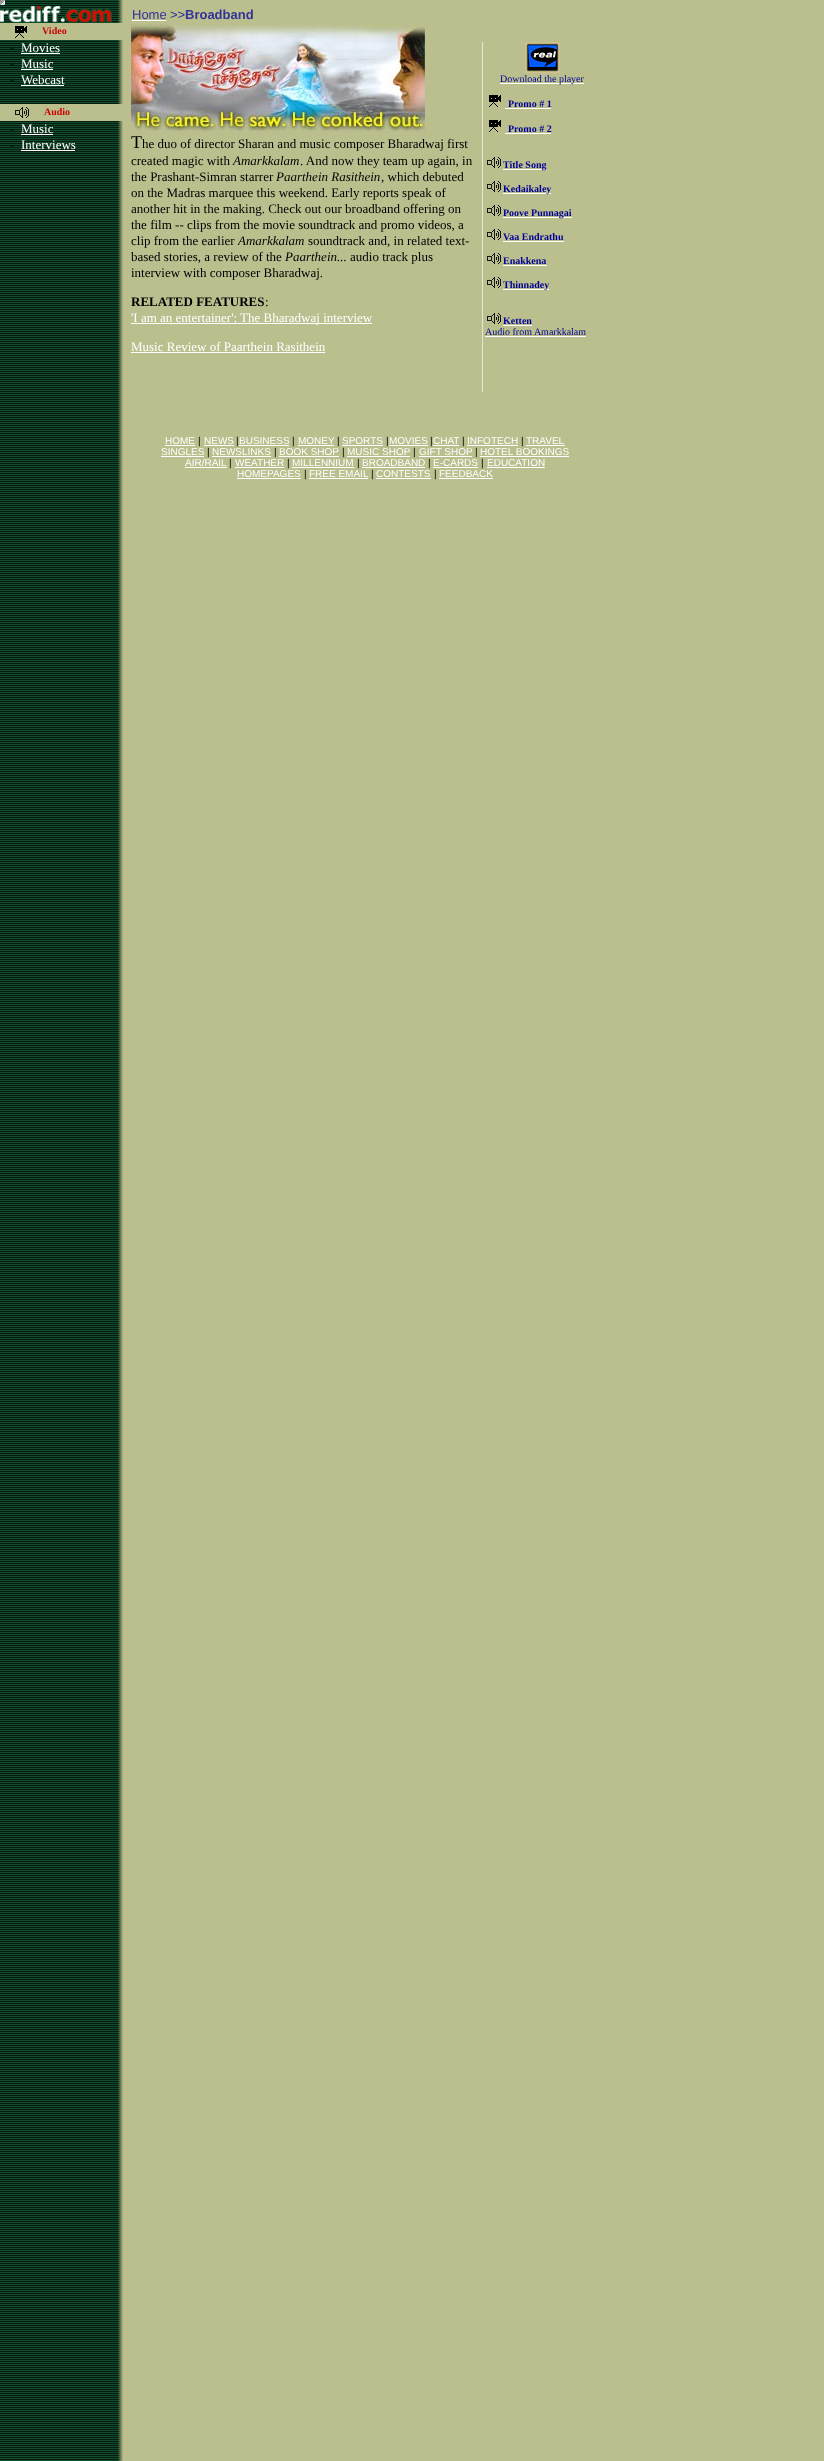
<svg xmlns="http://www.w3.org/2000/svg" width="824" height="2461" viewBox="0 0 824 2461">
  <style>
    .t1 { font: 13px Liberation Sans; fill: #339; }
    .t2 { font: bold 13px Liberation Sans; fill: #339; }
    .t3 { font: bold 10px Liberation Serif; fill: #c00; }
    .t4 { font: 13px Liberation Serif; fill: #000; }
    .t5 { font: 13px Liberation Serif; fill: #fff; }
    .t6 { font: 18px Liberation Serif; fill: #000; }
    .t7 { font: italic 13px Liberation Serif; fill: #000; }
    .t8 { font: bold 13px Liberation Serif; fill: #000; }
    .t9 { font: 10px Liberation Serif; fill: #000098; }
    .t10 { font: bold 10px Liberation Serif; fill: #000098; }
    .t11 { font: 10px Liberation Sans; fill: #fff; }
    .t12 { font: 10px Liberation Sans; fill: #000; }
  </style>
  <rect width="100%" height="100%" fill="#bbbf8e"/>
  <image x="0" y="0" width="123" height="2461" href="images/1.png"/>
  <path d="M0 0H5L3 2H2Z" fill="#9f9f9f"/>
  <path d="M5 0V5L3 3V2Z" fill="#eee"/>
  <path d="M5 5H0L2 3H3Z" fill="#eee"/>
  <path d="M0 5V0L2 2V3Z" fill="#9f9f9f"/>
  <rect x="2" y="2" width="1" height="1" fill="#9a9a9a"/>
  <image x="0" y="6" width="112" height="16" href="images/2.png"/>
  <text x="132" y="19" class="t1">Home</text>
  <rect x="132" y="20" width="34" height="1" fill="#fff"/>
  <text x="170" y="19" class="t1">&gt;&gt;</text>
  <text x="185" y="19" class="t2">Broadband</text>
  <rect x="0" y="23" width="123" height="17" fill="#bbbf8e"/>
  <image x="15" y="26" width="12" height="12" href="images/3.png"/>
  <text x="42" y="34" class="t3">Video</text>
  <text x="10" y="52" class="t4">-</text>
  <text x="21" y="52" class="t5">Movies</text>
  <rect x="21" y="53" width="39" height="1" fill="#fff"/>
  <text x="10" y="68" class="t4">-</text>
  <text x="21" y="68" class="t5">Music</text>
  <rect x="21" y="69" width="32" height="1" fill="#fff"/>
  <text x="10" y="84" class="t4">-</text>
  <text x="21" y="84" class="t5">Webcast</text>
  <rect x="21" y="85" width="43" height="1" fill="#fff"/>
  <rect x="0" y="104" width="123" height="17" fill="#bbbf8e"/>
  <image x="15" y="107" width="14" height="11" href="images/4.png"/>
  <text x="44" y="115" class="t3">Audio</text>
  <text x="10" y="133" class="t4">-</text>
  <text x="21" y="133" class="t5">Music</text>
  <rect x="21" y="134" width="32" height="1" fill="#fff"/>
  <text x="10" y="149" class="t4">-</text>
  <text x="21" y="149" class="t5">Interviews</text>
  <rect x="21" y="150" width="54" height="1" fill="#fff"/>
  <image x="131" y="24" width="294" height="108" href="images/5.png"/>
  <text x="131" y="148" class="t6">T</text>
  <text x="142" y="148" class="t4">he duo of director Sharan and music composer Bharadwaj first</text>
  <text x="131" y="165" class="t4">created magic with</text>
  <text x="233" y="165" class="t7">Amarkkalam</text>
  <text x="300" y="165" class="t4">. And now they team up again, in</text>
  <text x="131" y="181" class="t4">the Prashant-Simran starrer</text>
  <text x="276" y="181" class="t7">Paarthein Rasithein</text>
  <text x="381" y="181" class="t4">, which debuted</text>
  <text x="131" y="197" class="t4">on the Madras marquee this weekend. Early reports speak of</text>
  <text x="131" y="213" class="t4">another hit in the making. Check out our broadband offering on</text>
  <text x="131" y="229" class="t4">the film -- clips from the movie soundtrack and promo videos, a</text>
  <text x="131" y="245" class="t4">clip from the earlier</text>
  <text x="238" y="245" class="t7">Amarkkalam</text>
  <text x="308" y="245" class="t4">soundtrack and, in related text-</text>
  <text x="131" y="261" class="t4">based stories, a review of the</text>
  <text x="285" y="261" class="t7">Paarthein...</text>
  <text x="350" y="261" class="t4">audio track plus</text>
  <text x="131" y="277" class="t4">interview with composer Bharadwaj.</text>
  <text x="131" y="306" class="t8">RELATED FEATURES</text>
  <text x="265" y="306" class="t4">:</text>
  <rect x="131" y="323" width="241" height="1" fill="#fff"/>
  <text x="131" y="322" class="t5">'I am an entertainer': The Bharadwaj interview</text>
  <text x="131" y="351" class="t5">Music Review of Paarthein Rasithein</text>
  <rect x="131" y="352" width="194" height="1" fill="#fff"/>
  <rect x="482" y="42" width="1" height="350" fill="#e6e7d6"/>
  <image x="525" y="42" width="35" height="31" href="images/6.png"/>
  <rect x="500" y="83" width="84" height="1" fill="#fff"/>
  <text x="500" y="82" class="t9">Download the player</text>
  <image x="489" y="95" width="12" height="12" href="images/3.png"/>
  <text x="508" y="107" class="t10">Promo # 1</text>
  <rect x="505" y="108" width="46" height="1" fill="#fff"/>
  <image x="489" y="120" width="12" height="12" href="images/3.png"/>
  <text x="508" y="132" class="t10">Promo # 2</text>
  <rect x="505" y="133" width="46" height="1" fill="#fff"/>
  <image x="487" y="157" width="14" height="11" href="images/4.png"/>
  <rect x="503" y="169" width="44" height="1" fill="#fff"/>
  <text x="503" y="168" class="t10">Title Song</text>
  <image x="487" y="181" width="14" height="11" href="images/4.png"/>
  <rect x="503" y="193" width="48" height="1" fill="#fff"/>
  <text x="503" y="192" class="t10">Kedaikaley</text>
  <image x="487" y="205" width="14" height="11" href="images/4.png"/>
  <rect x="503" y="217" width="69" height="1" fill="#fff"/>
  <text x="503" y="216" class="t10">Poove Punnagai</text>
  <image x="487" y="229" width="14" height="11" href="images/4.png"/>
  <text x="503" y="240" class="t10">Vaa Endrathu</text>
  <rect x="503" y="241" width="61" height="1" fill="#fff"/>
  <image x="487" y="253" width="14" height="11" href="images/4.png"/>
  <text x="503" y="264" class="t10">Enakkena</text>
  <rect x="503" y="265" width="44" height="1" fill="#fff"/>
  <image x="487" y="277" width="14" height="11" href="images/4.png"/>
  <rect x="503" y="289" width="46" height="1" fill="#fff"/>
  <text x="503" y="288" class="t10">Thinnadey</text>
  <image x="487" y="313" width="14" height="11" href="images/4.png"/>
  <text x="503" y="324" class="t10">Ketten</text>
  <rect x="503" y="325" width="29" height="1" fill="#fff"/>
  <text x="485" y="335" class="t9">Audio from Amarkkalam</text>
  <rect x="485" y="336" width="101" height="1" fill="#fff"/>
  <text x="165" y="444" class="t11">HOME</text>
  <rect x="165" y="445" width="30" height="1" fill="#fff"/>
  <text x="198" y="444" class="t12">|</text>
  <text x="204" y="444" class="t11">NEWS</text>
  <rect x="204" y="445" width="30" height="1" fill="#fff"/>
  <text x="236" y="444" class="t12">|</text>
  <rect x="239" y="445" width="50" height="1" fill="#fff"/>
  <text x="239" y="444" class="t11">BUSINESS</text>
  <text x="292" y="444" class="t12">|</text>
  <text x="298" y="444" class="t11">MONEY</text>
  <rect x="298" y="445" width="36" height="1" fill="#fff"/>
  <text x="337" y="444" class="t12">|</text>
  <text x="342" y="444" class="t11">SPORTS</text>
  <rect x="342" y="445" width="41" height="1" fill="#fff"/>
  <text x="386" y="444" class="t12">|</text>
  <rect x="389" y="445" width="39" height="1" fill="#fff"/>
  <text x="389" y="444" class="t11">MOVIES</text>
  <text x="430" y="444" class="t12">|</text>
  <rect x="433" y="445" width="26" height="1" fill="#fff"/>
  <text x="433" y="444" class="t11">CHAT</text>
  <text x="462" y="444" class="t12">|</text>
  <text x="467" y="444" class="t11">INFOTECH</text>
  <rect x="467" y="445" width="51" height="1" fill="#fff"/>
  <text x="521" y="444" class="t12">|</text>
  <text x="526" y="444" class="t11">TRAVEL</text>
  <rect x="526" y="445" width="39" height="1" fill="#fff"/>
  <text x="161" y="455" class="t11">SINGLES</text>
  <rect x="161" y="456" width="43" height="1" fill="#fff"/>
  <text x="207" y="455" class="t12">|</text>
  <text x="212" y="455" class="t11">NEWSLINKS</text>
  <rect x="212" y="456" width="59" height="1" fill="#fff"/>
  <text x="274" y="455" class="t12">|</text>
  <text x="279" y="455" class="t11">BOOK SHOP</text>
  <rect x="279" y="456" width="60" height="1" fill="#fff"/>
  <text x="342" y="455" class="t12">|</text>
  <text x="347" y="455" class="t11">MUSIC SHOP</text>
  <rect x="347" y="456" width="63" height="1" fill="#fff"/>
  <text x="413" y="455" class="t12">|</text>
  <text x="419" y="455" class="t11">GIFT SHOP</text>
  <rect x="419" y="456" width="53" height="1" fill="#fff"/>
  <text x="475" y="455" class="t12">|</text>
  <text x="480" y="455" class="t11">HOTEL BOOKINGS</text>
  <rect x="480" y="456" width="89" height="1" fill="#fff"/>
  <text x="185" y="466" class="t11">AIR/RAIL</text>
  <rect x="185" y="467" width="42" height="1" fill="#fff"/>
  <text x="229" y="466" class="t12">|</text>
  <text x="235" y="466" class="t11">WEATHER</text>
  <rect x="235" y="467" width="49" height="1" fill="#fff"/>
  <text x="287" y="466" class="t12">|</text>
  <text x="292" y="466" class="t11">MILLENNIUM</text>
  <rect x="292" y="467" width="62" height="1" fill="#fff"/>
  <text x="357" y="466" class="t12">|</text>
  <text x="362" y="466" class="t11">BROADBAND</text>
  <rect x="362" y="467" width="63" height="1" fill="#fff"/>
  <text x="428" y="466" class="t12">|</text>
  <text x="433" y="466" class="t11">E-CARDS</text>
  <rect x="433" y="467" width="45" height="1" fill="#fff"/>
  <text x="481" y="466" class="t12">|</text>
  <text x="487" y="466" class="t11">EDUCATION</text>
  <rect x="487" y="467" width="58" height="1" fill="#fff"/>
  <text x="237" y="477" class="t11">HOMEPAGES</text>
  <rect x="237" y="478" width="64" height="1" fill="#fff"/>
  <text x="304" y="477" class="t12">|</text>
  <text x="309" y="477" class="t11">FREE EMAIL</text>
  <rect x="309" y="478" width="59" height="1" fill="#fff"/>
  <text x="371" y="477" class="t12">|</text>
  <text x="376" y="477" class="t11">CONTESTS</text>
  <rect x="376" y="478" width="55" height="1" fill="#fff"/>
  <text x="434" y="477" class="t12">|</text>
  <text x="439" y="477" class="t11">FEEDBACK</text>
  <rect x="439" y="478" width="54" height="1" fill="#fff"/>
</svg>
